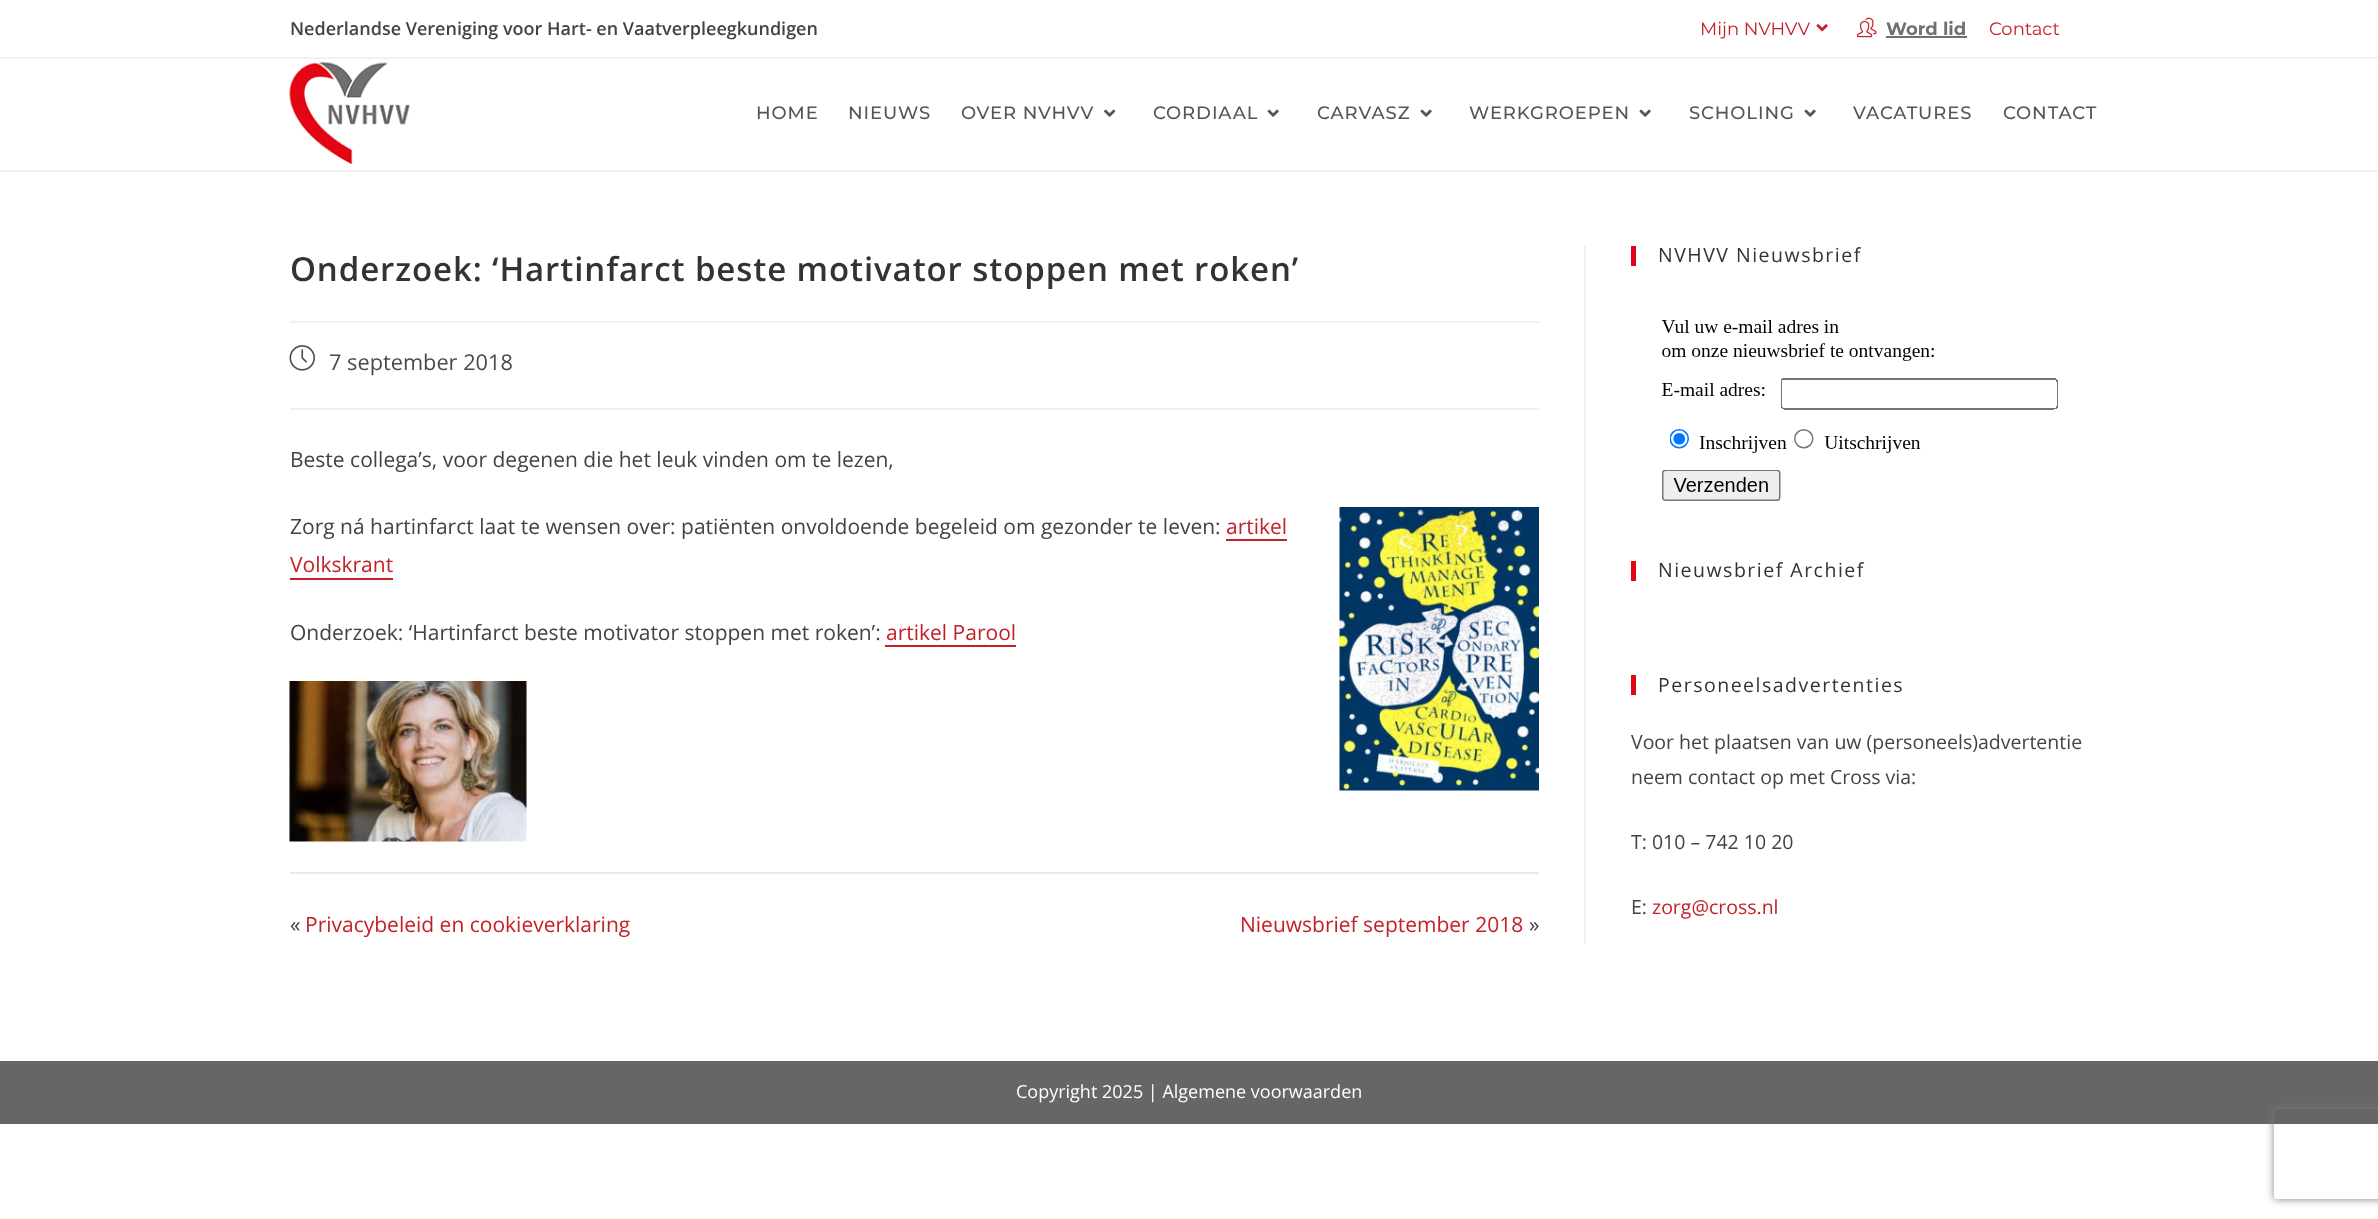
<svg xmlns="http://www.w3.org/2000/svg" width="2378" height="1219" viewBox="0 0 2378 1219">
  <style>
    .t1 { font: 600 18px Open Sans; fill: #434343; }
    .t2 { font: 18px Montserrat; fill: #c42127; }
    .t3 { font: bold 18px Montserrat; fill: #707070; }
    .t4 { font: 500 18px Montserrat; letter-spacing: 0.9px; fill: #555; }
    .t5 { font: 600 33px Open Sans; letter-spacing: 0.9px; fill: #333; }
    .t6 { font: 21.75px Open Sans; fill: #4a4a4a; }
    .t7 { font: 21px Open Sans; fill: #434343; }
    .t8 { font: 21px Open Sans; fill: #c42127; }
    .t9 { font: 19.5px Open Sans; letter-spacing: 1.5px; fill: #333; }
    .t10 { font: 19.5px Open Sans; fill: #434343; }
    .t11 { font: 19.5px Open Sans; fill: #c42127; }
    .t12 { font: 18px Open Sans; fill: #fff; }
  </style>
  <defs>
    <clipPath id="clip1"><path d="M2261 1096H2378V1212H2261ZM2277 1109H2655C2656.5 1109 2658 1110.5 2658 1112V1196C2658 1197.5 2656.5 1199 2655 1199H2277C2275.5 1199 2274 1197.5 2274 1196V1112C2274 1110.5 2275.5 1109 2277 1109Z" clip-rule="evenodd"/></clipPath>
  </defs>
  <rect width="100%" height="100%" fill="#fff"/>
  <rect x="0" y="57" width="2378" height="2" fill="#f1f1f1"/>
  <text x="290" y="35" class="t1">Nederlandse Vereniging voor Hart- en Vaatverpleegkundigen</text>
  <text x="1700" y="35" class="t2">Mijn NVHVV</text>
  <image x="1816" y="24" width="12" height="8" href="images/1.png"/>
  <image x="1857" y="17" width="20" height="21" href="images/2.png"/>
  <text x="1886" y="35" class="t3">Word lid</text>
  <rect x="1886" y="36" width="81" height="2" fill="#707070"/>
  <text x="1989" y="35" class="t2">Contact</text>
  <rect x="0" y="170" width="2378" height="2" fill="#f1f1f1"/>
  <image x="289" y="61" width="121" height="103" href="images/3.png"/>
  <text x="756" y="119" class="t4">HOME</text>
  <text x="848" y="119" class="t4">NIEUWS</text>
  <text x="961" y="119" class="t4">OVER NVHVV</text>
  <image x="1104" y="109" width="12" height="8" href="images/4.png"/>
  <text x="1153" y="119" class="t4">CORDIAAL</text>
  <image x="1267" y="109" width="12" height="8" href="images/5.png"/>
  <text x="1317" y="119" class="t4">CARVASZ</text>
  <image x="1420" y="109" width="12" height="8" href="images/5.png"/>
  <text x="1469" y="119" class="t4">WERKGROEPEN</text>
  <image x="1639" y="109" width="12" height="8" href="images/5.png"/>
  <text x="1689" y="119" class="t4">SCHOLING</text>
  <image x="1804" y="109" width="12" height="8" href="images/5.png"/>
  <text x="1853" y="119" class="t4">VACATURES</text>
  <text x="2003" y="119" class="t4">CONTACT</text>
  <rect x="1584" y="246" width="2" height="698" fill="#f1f1f1"/>
  <rect x="290" y="321" width="1249" height="2" fill="#f1f1f1"/>
  <text x="290" y="281" class="t5">Onderzoek: ‘Hartinfarct beste motivator stoppen met roken’</text>
  <rect x="290" y="408" width="1249" height="2" fill="#f1f1f1"/>
  <image x="289" y="345" width="26" height="26" href="images/6.png"/>
  <text x="329" y="370" class="t6">7 september 2018</text>
  <text x="290" y="467" class="t7">Beste collega’s, voor degenen die het leuk vinden om te lezen,</text>
  <text x="290" y="534" class="t7">Zorg ná hartinfarct laat te wensen over: patiënten onvoldoende begeleid om gezonder te leven:</text>
  <text x="1226" y="534" class="t8">artikel</text>
  <rect x="1226" y="539" width="61" height="2" fill="#c42127"/>
  <image x="1339" y="507" width="200" height="284" href="images/7.png"/>
  <text x="290" y="572" class="t8">Volkskrant</text>
  <rect x="290" y="578" width="103" height="2" fill="#c42127"/>
  <text x="290" y="640" class="t7">Onderzoek: ‘Hartinfarct beste motivator stoppen met roken’:</text>
  <text x="886" y="640" class="t8">artikel Parool</text>
  <rect x="885" y="645" width="131" height="2" fill="#c42127"/>
  <image x="289" y="681" width="238" height="161" href="images/8.png"/>
  <rect x="290" y="872" width="1249" height="2" fill="#e9e9e9"/>
  <text x="290" y="932" class="t7">«</text>
  <text x="305" y="932" class="t8">Privacybeleid en cookieverklaring</text>
  <text x="1240" y="932" class="t8">Nieuwsbrief september 2018</text>
  <text x="1529" y="932" class="t7">»</text>
  <rect x="1631" y="246" width="5" height="20" fill="#e20513"/>
  <text x="1658" y="262" class="t9">NVHVV Nieuwsbrief</text>
  <image x="1661" y="320" width="397" height="181" href="images/9.png"/>
  <rect x="1631" y="561" width="5" height="20" fill="#e20513"/>
  <text x="1658" y="577" class="t9">Nieuwsbrief Archief</text>
  <rect x="1631" y="675" width="5" height="20" fill="#e20513"/>
  <text x="1658" y="692" class="t9">Personeelsadvertenties</text>
  <text x="1631" y="749" class="t10">Voor het plaatsen van uw (personeels)advertentie</text>
  <text x="1631" y="784" class="t10">neem contact op met Cross via:</text>
  <text x="1631" y="849" class="t10">T: 010 – 742 10 20</text>
  <text x="1631" y="914" class="t10">E:</text>
  <text x="1652" y="914" class="t11">zorg@cross.nl</text>
  <rect x="0" y="1061" width="2378" height="63" fill="#666"/>
  <text x="1016" y="1098" class="t12">Copyright 2025 | Algemene voorwaarden</text>
  <g clip-path="url(#clip1)">
    <rect x="2274" y="1109" width="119" height="90" rx="3" fill="#808080" filter="blur(4px)"/>
  </g>
</svg>
